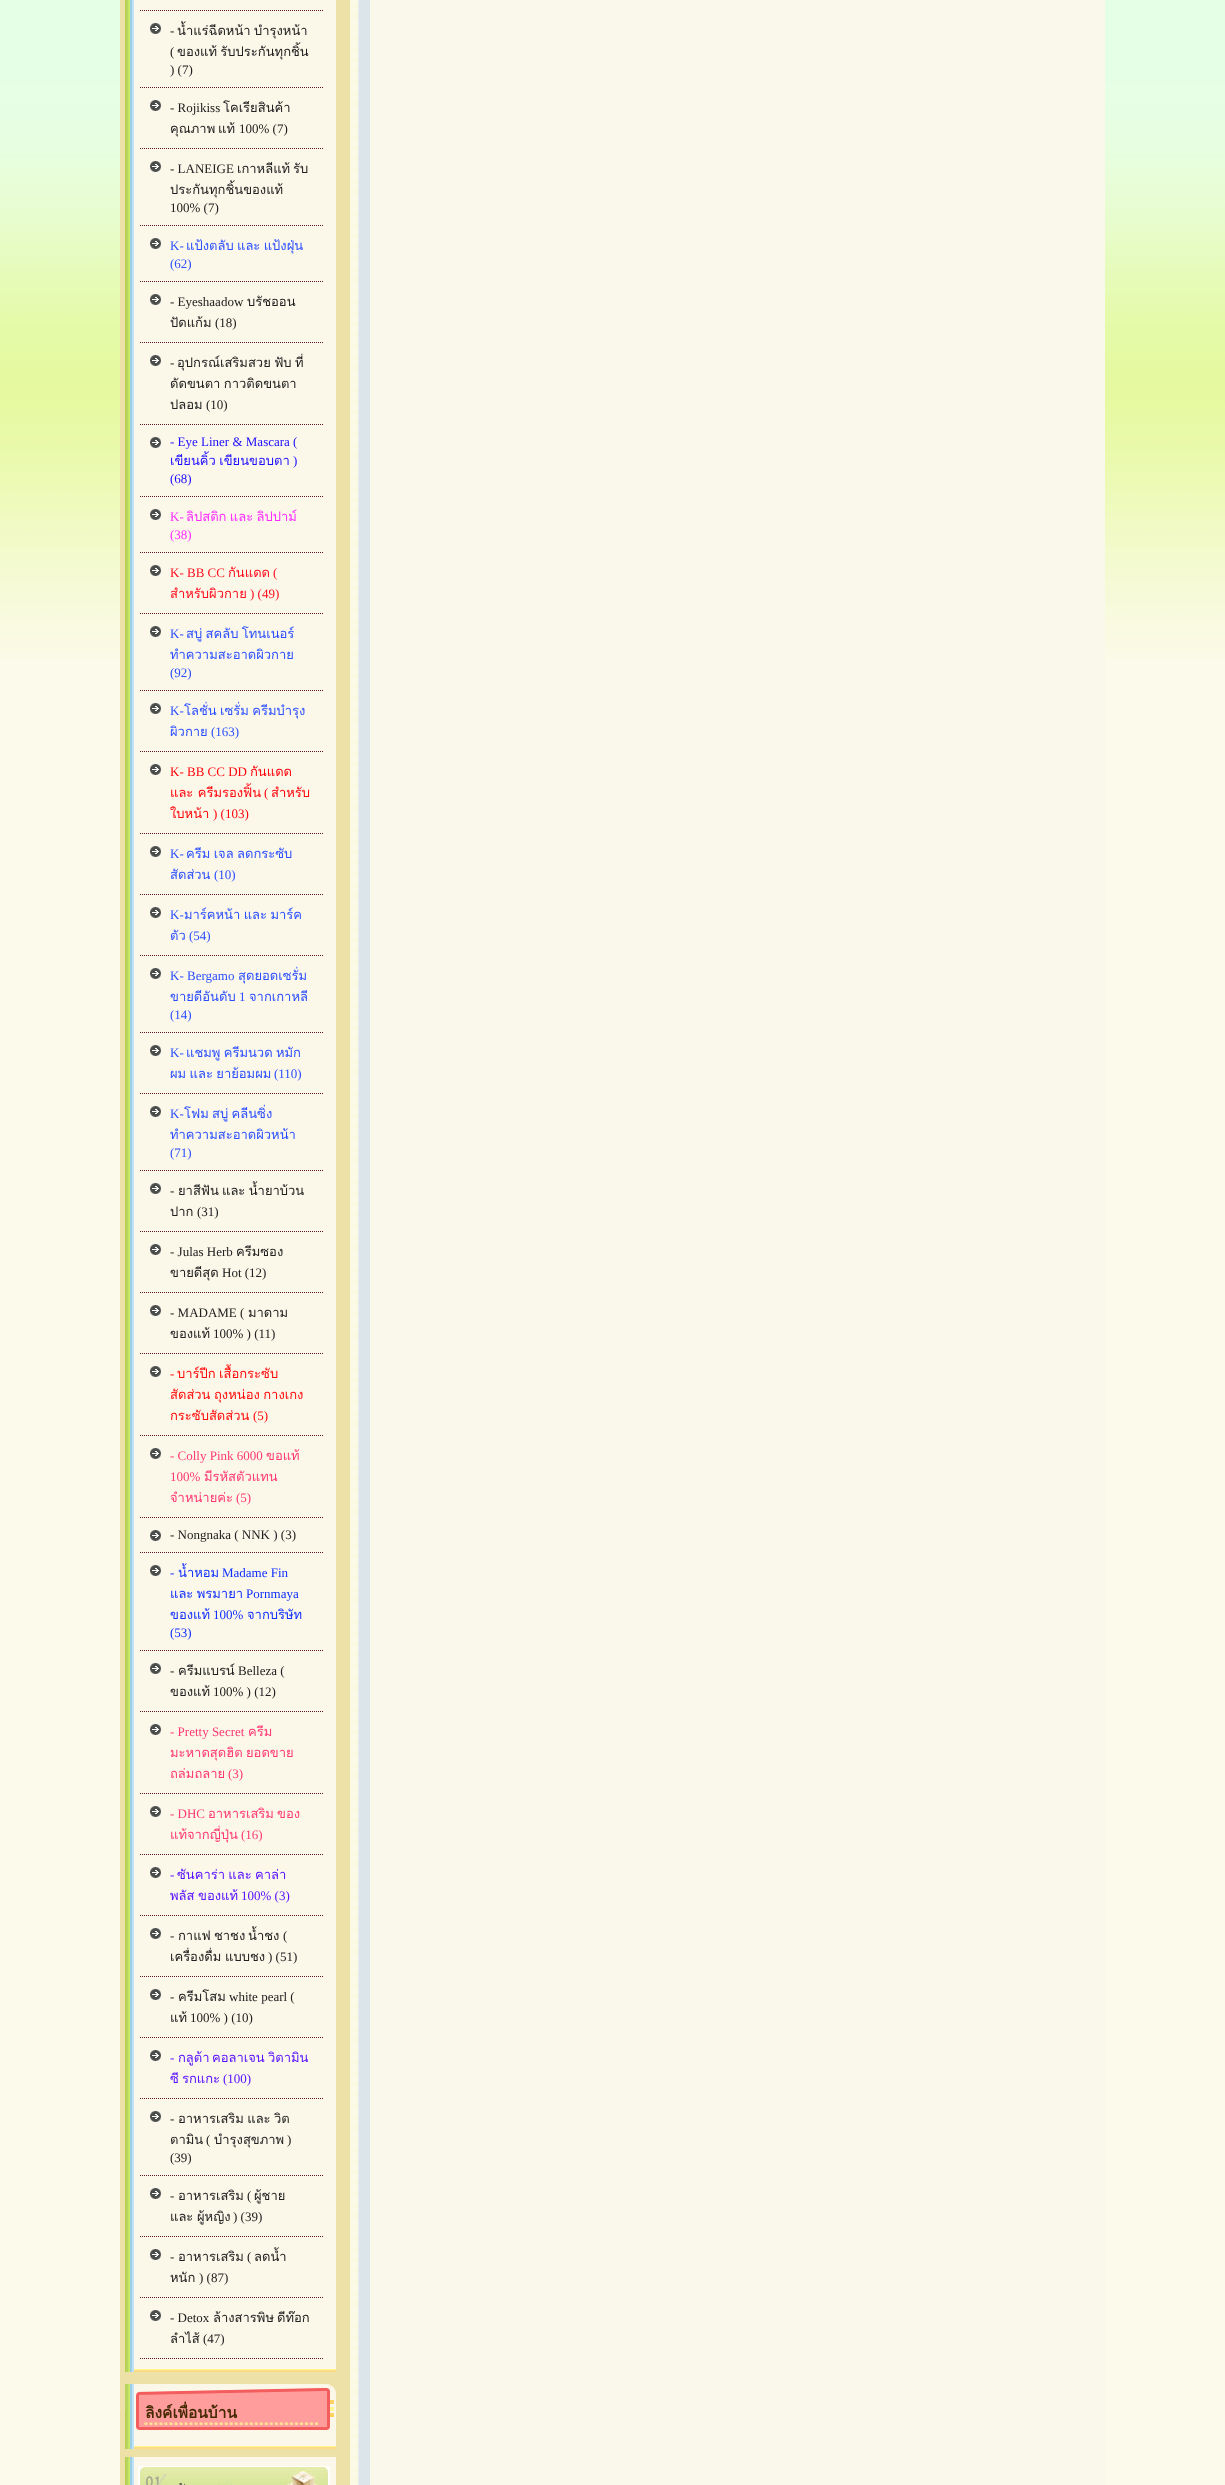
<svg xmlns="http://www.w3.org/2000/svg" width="1225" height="2485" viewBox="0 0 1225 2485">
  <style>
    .t1 { font: 13px Liberation Serif; fill: #202020; }
    .t2 { font: 13px Loma; fill: #202020; }
    .t3 { font: 13px Liberation Serif; fill: #2b4fff; }
    .t4 { font: 13px Loma; fill: #2b4fff; }
    .t5 { font: 13px Liberation Serif; fill: #1d0dff; }
    .t6 { font: 13px Loma; fill: #1d0dff; }
    .t7 { font: 13px Liberation Serif; fill: #ff2bff; }
    .t8 { font: 13px Loma; fill: #ff2bff; }
    .t9 { font: 13px Liberation Serif; fill: #ff0d1d; }
    .t10 { font: 13px Loma; fill: #ff0d1d; }
    .t11 { font: 13px Liberation Serif; fill: #ff030b; }
    .t12 { font: 13px Loma; fill: #ff030b; }
    .t13 { font: 13px Liberation Serif; fill: #ff0a0a; }
    .t14 { font: 13px Loma; fill: #ff0a0a; }
    .t15 { font: 13px Liberation Serif; fill: #ff3874; }
    .t16 { font: 13px Loma; fill: #ff3874; }
    .t17 { font: 13px Liberation Serif; fill: #0f2fff; }
    .t18 { font: 13px Loma; fill: #0f2fff; }
    .t19 { font: 13px Liberation Serif; fill: #5912ff; }
    .t20 { font: 13px Loma; fill: #5912ff; }
    .t21 { font: bold 15.5px Loma; fill: #442903; }
  </style>
  <rect width="100%" height="100%" fill="#fcfaeb"/>
  <image x="0" y="0" width="1225" height="658" href="images/1.png"/>
  <image x="120" y="0" width="985" height="2485" href="images/2.png"/>
  <image x="125" y="0" width="211" height="2359" href="images/3.png"/>
  <path d="M140 10.5H324" fill="none" stroke="#611229" stroke-dasharray="1 1"/>
  <path d="M140 87.5H324" fill="none" stroke="#611229" stroke-dasharray="1 1"/>
  <image x="150" y="23" width="11" height="11" href="images/4.png"/>
  <text x="170" y="35" class="t1">-</text>
  <text x="177" y="35" word-spacing="-1" class="t2">น้ำแร่ฉีดหน้า บำรุงหน้า</text>
  <text x="170" y="56" class="t1">(</text>
  <text x="177" y="56" word-spacing="-1" class="t2">ของแท้ รับประกันทุกชิ้น</text>
  <text x="170" y="74" class="t1">) (7)</text>
  <path d="M140 148.5H324" fill="none" stroke="#611229" stroke-dasharray="1 1"/>
  <image x="150" y="100" width="11" height="11" href="images/4.png"/>
  <text x="170" y="112" class="t1">- Rojikiss</text>
  <text x="223" y="112" class="t2">โคเรียสินค้า</text>
  <text x="170" y="133" class="t2">คุณภาพ</text>
  <text x="218" y="133" class="t2">แท้</text>
  <text x="239" y="133" class="t1">100% (7)</text>
  <path d="M140 225.5H324" fill="none" stroke="#611229" stroke-dasharray="1 1"/>
  <image x="150" y="161" width="11" height="11" href="images/4.png"/>
  <text x="170" y="173" class="t1">- LANEIGE</text>
  <text x="237" y="173" class="t2">เกาหลีแท้</text>
  <text x="293" y="173" class="t2">รับ</text>
  <text x="170" y="194" class="t2">ประกันทุกชิ้นของแท้</text>
  <text x="170" y="212" class="t1">100% (7)</text>
  <path d="M140 281.5H324" fill="none" stroke="#611229" stroke-dasharray="1 1"/>
  <image x="150" y="238" width="11" height="11" href="images/4.png"/>
  <text x="170" y="250" class="t3">K-</text>
  <text x="186" y="250" word-spacing="-1" class="t4">แป้งตลับ และ แป้งฝุ่น</text>
  <text x="170" y="268" class="t3">(62)</text>
  <path d="M140 342.5H324" fill="none" stroke="#611229" stroke-dasharray="1 1"/>
  <image x="150" y="294" width="11" height="11" href="images/4.png"/>
  <text x="170" y="306" class="t1">- Eyeshaadow</text>
  <text x="247" y="306" class="t2">บรัชออน</text>
  <text x="170" y="327" class="t2">ปัดแก้ม</text>
  <text x="215" y="327" class="t1">(18)</text>
  <path d="M140 424.5H324" fill="none" stroke="#611229" stroke-dasharray="1 1"/>
  <image x="150" y="355" width="11" height="11" href="images/4.png"/>
  <text x="170" y="367" class="t1">-</text>
  <text x="177" y="367" word-spacing="-1" class="t2">อุปกรณ์เสริมสวย ฟับ ที่</text>
  <text x="170" y="388" word-spacing="-1" class="t2">ดัดขนตา กาวติดขนตา</text>
  <text x="170" y="409" class="t2">ปลอม</text>
  <text x="206" y="409" class="t1">(10)</text>
  <path d="M140 496.5H324" fill="none" stroke="#611229" stroke-dasharray="1 1"/>
  <image x="150" y="437" width="11" height="11" href="images/4.png"/>
  <text x="170" y="446" class="t5">- Eye Liner &amp; Mascara (</text>
  <text x="170" y="465" word-spacing="-1" class="t6">เขียนคิ้ว เขียนขอบตา</text>
  <text x="293" y="465" class="t5">)</text>
  <text x="170" y="483" class="t5">(68)</text>
  <path d="M140 552.5H324" fill="none" stroke="#611229" stroke-dasharray="1 1"/>
  <image x="150" y="509" width="11" height="11" href="images/4.png"/>
  <text x="170" y="521" class="t7">K-</text>
  <text x="186" y="521" word-spacing="-1" class="t8">ลิปสติก และ ลิปปาม์</text>
  <text x="170" y="539" class="t7">(38)</text>
  <path d="M140 613.5H324" fill="none" stroke="#611229" stroke-dasharray="1 1"/>
  <image x="150" y="565" width="11" height="11" href="images/4.png"/>
  <text x="170" y="577" class="t9">K- BB CC</text>
  <text x="228" y="577" class="t10">กันแดด</text>
  <text x="273" y="577" class="t9">(</text>
  <text x="170" y="598" class="t10">สำหรับผิวกาย</text>
  <text x="250" y="598" class="t9">) (49)</text>
  <path d="M140 690.5H324" fill="none" stroke="#611229" stroke-dasharray="1 1"/>
  <image x="150" y="626" width="11" height="11" href="images/4.png"/>
  <text x="170" y="638" class="t3">K-</text>
  <text x="186" y="638" word-spacing="-1" class="t4">สบู่ สคลับ โทนเนอร์</text>
  <text x="170" y="659" class="t4">ทำความสะอาดผิวกาย</text>
  <text x="170" y="677" class="t3">(92)</text>
  <path d="M140 751.5H324" fill="none" stroke="#611229" stroke-dasharray="1 1"/>
  <image x="150" y="703" width="11" height="11" href="images/4.png"/>
  <text x="170" y="715" class="t3">K-</text>
  <text x="184" y="715" word-spacing="-1" class="t4">โลชั่น เซรั่ม ครีมบำรุง</text>
  <text x="170" y="736" class="t4">ผิวกาย</text>
  <text x="211" y="736" class="t3">(163)</text>
  <path d="M140 833.5H324" fill="none" stroke="#611229" stroke-dasharray="1 1"/>
  <image x="150" y="764" width="11" height="11" href="images/4.png"/>
  <text x="170" y="776" class="t11">K- BB CC DD</text>
  <text x="250" y="776" class="t12">กันแดด</text>
  <text x="170" y="797" class="t12">และ ครีมรองฟิ้น</text>
  <text x="264" y="797" class="t11">(</text>
  <text x="271" y="797" class="t12">สำหรับ</text>
  <text x="170" y="818" class="t12">ใบหน้า</text>
  <text x="213" y="818" class="t11">) (103)</text>
  <path d="M140 894.5H324" fill="none" stroke="#611229" stroke-dasharray="1 1"/>
  <image x="150" y="846" width="11" height="11" href="images/4.png"/>
  <text x="170" y="858" class="t3">K-</text>
  <text x="186" y="858" word-spacing="-1" class="t4">ครีม เจล ลดกระซับ</text>
  <text x="170" y="879" class="t4">สัดส่วน</text>
  <text x="214" y="879" class="t3">(10)</text>
  <path d="M140 955.5H324" fill="none" stroke="#611229" stroke-dasharray="1 1"/>
  <image x="150" y="907" width="11" height="11" href="images/4.png"/>
  <text x="170" y="919" class="t3">K-</text>
  <text x="184" y="919" word-spacing="-1" class="t4">มาร์คหน้า และ มาร์ค</text>
  <text x="170" y="940" class="t4">ตัว</text>
  <text x="189" y="940" class="t3">(54)</text>
  <path d="M140 1032.5H324" fill="none" stroke="#611229" stroke-dasharray="1 1"/>
  <image x="150" y="968" width="11" height="11" href="images/4.png"/>
  <text x="170" y="980" class="t3">K- Bergamo</text>
  <text x="238" y="980" class="t4">สุดยอดเซรั่ม</text>
  <text x="170" y="1001" class="t4">ขายดีอันดับ</text>
  <text x="239" y="1001" class="t3">1</text>
  <text x="249" y="1001" class="t4">จากเกาหลี</text>
  <text x="170" y="1019" class="t3">(14)</text>
  <path d="M140 1093.5H324" fill="none" stroke="#611229" stroke-dasharray="1 1"/>
  <image x="150" y="1045" width="11" height="11" href="images/4.png"/>
  <text x="170" y="1057" class="t3">K-</text>
  <text x="186" y="1057" word-spacing="-1" class="t4">แชมพู ครีมนวด หมัก</text>
  <text x="170" y="1078" word-spacing="-1" class="t4">ผม และ ยาย้อมผม</text>
  <text x="274" y="1078" class="t3">(110)</text>
  <path d="M140 1170.5H324" fill="none" stroke="#611229" stroke-dasharray="1 1"/>
  <image x="150" y="1106" width="11" height="11" href="images/4.png"/>
  <text x="170" y="1118" class="t3">K-</text>
  <text x="184" y="1118" class="t4">โฟม</text>
  <text x="212" y="1118" word-spacing="-1" class="t4">สบู่ คลีนซิ่ง</text>
  <text x="170" y="1139" class="t4">ทำความสะอาดผิวหน้า</text>
  <text x="170" y="1157" class="t3">(71)</text>
  <path d="M140 1231.5H324" fill="none" stroke="#611229" stroke-dasharray="1 1"/>
  <image x="150" y="1183" width="11" height="11" href="images/4.png"/>
  <text x="170" y="1195" class="t1">-</text>
  <text x="178" y="1195" class="t2">ยาสีฟัน</text>
  <text x="222" y="1195" word-spacing="-1" class="t2">และ น้ำยาบ้วน</text>
  <text x="170" y="1216" class="t2">ปาก</text>
  <text x="197" y="1216" class="t1">(31)</text>
  <path d="M140 1292.5H324" fill="none" stroke="#611229" stroke-dasharray="1 1"/>
  <image x="150" y="1244" width="11" height="11" href="images/4.png"/>
  <text x="170" y="1256" class="t1">- Julas Herb</text>
  <text x="236" y="1256" class="t2">ครีมซอง</text>
  <text x="170" y="1277" class="t2">ขายดีสุด</text>
  <text x="222" y="1277" class="t1">Hot (12)</text>
  <path d="M140 1353.5H324" fill="none" stroke="#611229" stroke-dasharray="1 1"/>
  <image x="150" y="1305" width="11" height="11" href="images/4.png"/>
  <text x="170" y="1317" class="t1">- MADAME (</text>
  <text x="248" y="1317" class="t2">มาดาม</text>
  <text x="170" y="1338" class="t2">ของแท้</text>
  <text x="213" y="1338" class="t1">100% ) (11)</text>
  <path d="M140 1435.5H324" fill="none" stroke="#611229" stroke-dasharray="1 1"/>
  <image x="150" y="1366" width="11" height="11" href="images/4.png"/>
  <text x="170" y="1378" class="t13">-</text>
  <text x="177" y="1378" word-spacing="-1" class="t14">บาร์ปีก เสื้อกระซับ</text>
  <text x="170" y="1399" class="t14">สัดส่วน</text>
  <text x="214" y="1399" word-spacing="-1" class="t14">ถุงหน่อง กางเกง</text>
  <text x="170" y="1420" class="t14">กระซับสัดส่วน</text>
  <text x="253" y="1420" class="t13">(5)</text>
  <path d="M140 1517.5H324" fill="none" stroke="#611229" stroke-dasharray="1 1"/>
  <image x="150" y="1448" width="11" height="11" href="images/4.png"/>
  <text x="170" y="1460" class="t15">- Colly Pink 6000</text>
  <text x="266" y="1460" class="t16">ขอแท้</text>
  <text x="170" y="1481" class="t15">100%</text>
  <text x="204" y="1481" class="t16">มีรหัสตัวแทน</text>
  <text x="170" y="1502" class="t16">จำหน่ายค่ะ</text>
  <text x="236" y="1502" class="t15">(5)</text>
  <path d="M140 1552.5H324" fill="none" stroke="#611229" stroke-dasharray="1 1"/>
  <image x="150" y="1530" width="11" height="11" href="images/4.png"/>
  <text x="170" y="1539" class="t1">- Nongnaka ( NNK ) (3)</text>
  <path d="M140 1650.5H324" fill="none" stroke="#611229" stroke-dasharray="1 1"/>
  <image x="150" y="1565" width="11" height="11" href="images/4.png"/>
  <text x="170" y="1577" class="t17">-</text>
  <text x="178" y="1577" class="t18">น้ำหอม</text>
  <text x="222" y="1577" class="t17">Madame Fin</text>
  <text x="170" y="1598" word-spacing="-1" class="t18">และ พรมายา</text>
  <text x="246" y="1598" class="t17">Pornmaya</text>
  <text x="170" y="1619" class="t18">ของแท้</text>
  <text x="213" y="1619" class="t17">100%</text>
  <text x="247" y="1619" class="t18">จากบริษัท</text>
  <text x="170" y="1637" class="t17">(53)</text>
  <path d="M140 1711.5H324" fill="none" stroke="#611229" stroke-dasharray="1 1"/>
  <image x="150" y="1663" width="11" height="11" href="images/4.png"/>
  <text x="170" y="1675" class="t1">-</text>
  <text x="178" y="1675" class="t2">ครีมแบรน์</text>
  <text x="238" y="1675" class="t1">Belleza (</text>
  <text x="170" y="1696" class="t2">ของแท้</text>
  <text x="213" y="1696" class="t1">100% ) (12)</text>
  <path d="M140 1793.5H324" fill="none" stroke="#611229" stroke-dasharray="1 1"/>
  <image x="150" y="1724" width="11" height="11" href="images/4.png"/>
  <text x="170" y="1736" class="t15">- Pretty Secret</text>
  <text x="248" y="1736" class="t16">ครีม</text>
  <text x="170" y="1757" word-spacing="-1" class="t16">มะหาดสุดฮิต ยอดขาย</text>
  <text x="170" y="1778" class="t16">ถล่มถลาย</text>
  <text x="228" y="1778" class="t15">(3)</text>
  <path d="M140 1854.5H324" fill="none" stroke="#611229" stroke-dasharray="1 1"/>
  <image x="150" y="1806" width="11" height="11" href="images/4.png"/>
  <text x="170" y="1818" class="t15">- DHC</text>
  <text x="208" y="1818" class="t16">อาหารเสริม</text>
  <text x="277" y="1818" class="t16">ของ</text>
  <text x="170" y="1839" class="t16">แท้จากญี่ปุ่น</text>
  <text x="241" y="1839" class="t15">(16)</text>
  <path d="M140 1915.5H324" fill="none" stroke="#611229" stroke-dasharray="1 1"/>
  <image x="150" y="1867" width="11" height="11" href="images/4.png"/>
  <text x="170" y="1879" class="t19">-</text>
  <text x="177" y="1879" word-spacing="-1" class="t20">ซันคาร่า และ คาล่า</text>
  <text x="170" y="1900" class="t20">พลัส</text>
  <text x="198" y="1900" class="t20">ของแท้</text>
  <text x="241" y="1900" class="t19">100% (3)</text>
  <path d="M140 1976.5H324" fill="none" stroke="#611229" stroke-dasharray="1 1"/>
  <image x="150" y="1928" width="11" height="11" href="images/4.png"/>
  <text x="170" y="1940" class="t1">-</text>
  <text x="178" y="1940" class="t2">กาแฟ</text>
  <text x="214" y="1940" class="t2">ชาชง</text>
  <text x="248" y="1940" class="t2">น้ำชง</text>
  <text x="283" y="1940" class="t1">(</text>
  <text x="170" y="1961" class="t2">เครื่องดื่ม</text>
  <text x="225" y="1961" class="t2">แบบชง</text>
  <text x="268" y="1961" class="t1">) (51)</text>
  <path d="M140 2037.5H324" fill="none" stroke="#611229" stroke-dasharray="1 1"/>
  <image x="150" y="1989" width="11" height="11" href="images/4.png"/>
  <text x="170" y="2001" class="t1">-</text>
  <text x="178" y="2001" class="t2">ครีมโสม</text>
  <text x="229" y="2001" class="t1">white pearl (</text>
  <text x="170" y="2022" class="t2">แท้</text>
  <text x="190" y="2022" class="t1">100% ) (10)</text>
  <path d="M140 2098.5H324" fill="none" stroke="#611229" stroke-dasharray="1 1"/>
  <image x="150" y="2050" width="11" height="11" href="images/4.png"/>
  <text x="170" y="2062" class="t19">-</text>
  <text x="178" y="2062" class="t20">กลูต้า</text>
  <text x="212" y="2062" class="t20">คอลาเจน</text>
  <text x="268" y="2062" class="t20">วิตามิน</text>
  <text x="170" y="2083" class="t20">ซี</text>
  <text x="182" y="2083" class="t20">รกแกะ</text>
  <text x="223" y="2083" class="t19">(100)</text>
  <path d="M140 2175.5H324" fill="none" stroke="#611229" stroke-dasharray="1 1"/>
  <image x="150" y="2111" width="11" height="11" href="images/4.png"/>
  <text x="170" y="2123" class="t1">-</text>
  <text x="178" y="2123" word-spacing="-1" class="t2">อาหารเสริม และ วิต</text>
  <text x="170" y="2144" class="t2">ตามิน</text>
  <text x="206" y="2144" class="t1">(</text>
  <text x="214" y="2144" class="t2">บำรุงสุขภาพ</text>
  <text x="287" y="2144" class="t1">)</text>
  <text x="170" y="2162" class="t1">(39)</text>
  <path d="M140 2236.5H324" fill="none" stroke="#611229" stroke-dasharray="1 1"/>
  <image x="150" y="2188" width="11" height="11" href="images/4.png"/>
  <text x="178" y="2200" class="t2">อาหารเสริม</text>
  <text x="247" y="2200" class="t1">(</text>
  <text x="254" y="2200" class="t2">ผู้ชาย</text>
  <text x="170" y="2200" class="t1">-</text>
  <text x="170" y="2221" class="t2">และ</text>
  <text x="197" y="2221" class="t2">ผู้หญิง</text>
  <text x="233" y="2221" class="t1">) (39)</text>
  <path d="M140 2297.5H324" fill="none" stroke="#611229" stroke-dasharray="1 1"/>
  <image x="150" y="2249" width="11" height="11" href="images/4.png"/>
  <text x="170" y="2261" class="t1">-</text>
  <text x="178" y="2261" class="t2">อาหารเสริม</text>
  <text x="247" y="2261" class="t1">(</text>
  <text x="254" y="2261" class="t2">ลดน้ำ</text>
  <text x="170" y="2282" class="t2">หนัก</text>
  <text x="199" y="2282" class="t1">) (87)</text>
  <path d="M140 2358.5H324" fill="none" stroke="#611229" stroke-dasharray="1 1"/>
  <image x="150" y="2310" width="11" height="11" href="images/4.png"/>
  <text x="170" y="2322" class="t1">- Detox</text>
  <text x="213" y="2322" class="t2">ล้างสารพิษ</text>
  <text x="277" y="2322" class="t2">ดีท๊อก</text>
  <text x="170" y="2343" class="t2">ลำไส้</text>
  <text x="203" y="2343" class="t1">(47)</text>
  <image x="125" y="2359" width="211" height="13" href="images/5.png"/>
  <image x="125" y="2384" width="211" height="52" href="images/6.png"/>
  <text x="145" y="2418" class="t21">ลิงค์เพื่อนบ้าน</text>
  <image x="125" y="2436" width="211" height="13" href="images/5.png"/>
  <image x="125" y="2457" width="211" height="9" href="images/7.png"/>
  <image x="125" y="2466" width="211" height="19" href="images/8.png"/>
  <image x="138" y="2466" width="192" height="19" href="images/9.png"/>
</svg>
